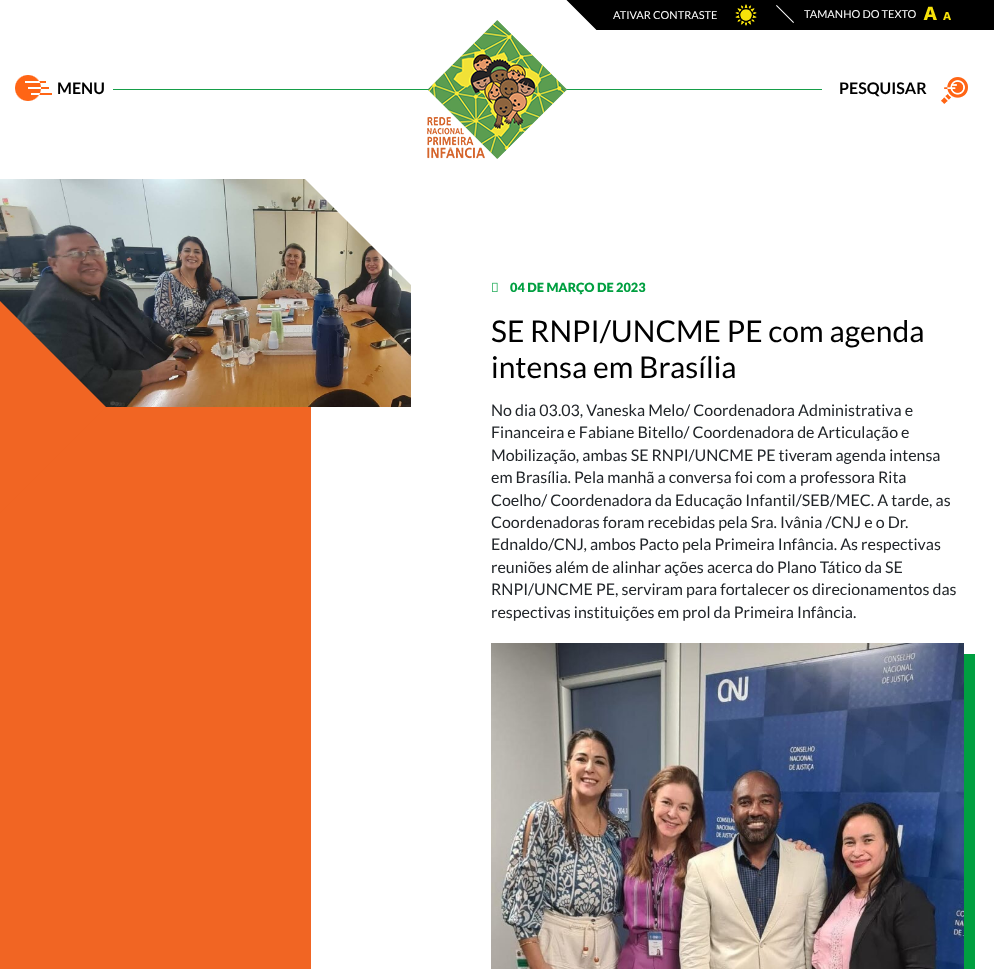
<svg xmlns="http://www.w3.org/2000/svg" width="994" height="969" viewBox="0 0 994 969">
  <style>
    .t1 { font: 11px Lato; fill: #fff; }
    .t2 { font: bold 16px Lato; fill: #000; }
    .t3 { font: 900 12.75px Lato; fill: #009f40; }
    .t4 { font: 30px Lato; fill: #000; }
    .t5 { font: 16px Lato; fill: #212529; }
  </style>
  <defs>
    <clipPath id="clip1"><rect x="0" y="179" width="994" height="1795"/></clipPath>
  </defs>
  <rect width="100%" height="100%" fill="#fff"/>
  <rect x="597" y="0" width="397" height="30" fill="#000"/>
  <image x="566" y="0" width="31" height="30" href="images/1.png"/>
  <text x="613" y="19" class="t1">ATIVAR CONTRASTE</text>
  <image x="735" y="4" width="22" height="22" href="images/2.png"/>
  <image x="776" y="5" width="18" height="18" href="images/3.png"/>
  <text x="804" y="18" class="t1">TAMANHO DO TEXTO</text>
  <image x="923" y="6" width="14" height="14" href="images/4.png"/>
  <image x="943" y="12" width="8" height="8" href="images/5.png"/>
  <rect x="113" y="89" width="709" height="1" fill="#169e49"/>
  <image x="15" y="75" width="37" height="26" href="images/6.png"/>
  <text x="57" y="94" class="t2">MENU</text>
  <image x="427" y="20" width="140" height="139" href="images/7.png"/>
  <text x="839" y="94" class="t2">PESQUISAR</text>
  <image x="941" y="77" width="27" height="27" href="images/8.png"/>
  <rect x="0" y="407" width="311" height="562" fill="#f16523"/>
  <image x="0" y="179" width="411" height="228" href="images/9.png"/>
  <g clip-path="url(#clip1)">
    <path d="M411 73L517 179L411 285L305 179Z" fill="#fff"/>
  </g>
  <path d="M0 301L106 407L0 513L-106 407Z" fill="#f16523"/>
  <image x="492" y="282" width="6" height="10" href="images/10.png"/>
  <text x="510" y="292" class="t3">04 DE MARÇO DE 2023</text>
  <text x="491" y="342" class="t4">SE RNPI/UNCME PE com agenda</text>
  <text x="491" y="378" class="t4">intensa em Brasília</text>
  <text x="491" y="416" class="t5">No dia 03.03, Vaneska Melo/ Coordenadora Administrativa e</text>
  <text x="491" y="438" class="t5">Financeira e Fabiane Bitello/ Coordenadora de Articulação e</text>
  <text x="491" y="461" class="t5">Mobilização, ambas SE RNPI/UNCME PE tiveram agenda intensa</text>
  <text x="491" y="483" class="t5">em Brasília. Pela manhã a conversa foi com a professora Rita</text>
  <text x="491" y="506" class="t5">Coelho/ Coordenadora da Educação Infantil/SEB/MEC. A tarde, as</text>
  <text x="491" y="528" class="t5">Coordenadoras foram recebidas pela Sra. Ivânia /CNJ e o Dr.</text>
  <text x="491" y="550" class="t5">Ednaldo/CNJ, ambos Pacto pela Primeira Infância. As respectivas</text>
  <text x="491" y="573" class="t5">reuniões além de alinhar ações acerca do Plano Tático da SE</text>
  <text x="491" y="595" class="t5">RNPI/UNCME PE, serviram para fortalecer os direcionamentos das</text>
  <text x="491" y="618" class="t5">respectivas instituições em prol da Primeira Infância.</text>
  <image x="491" y="643" width="473" height="326" href="images/11.png"/>
  <path d="M502 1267V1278H975V654H964V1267Z" fill="#009f40"/>
</svg>
